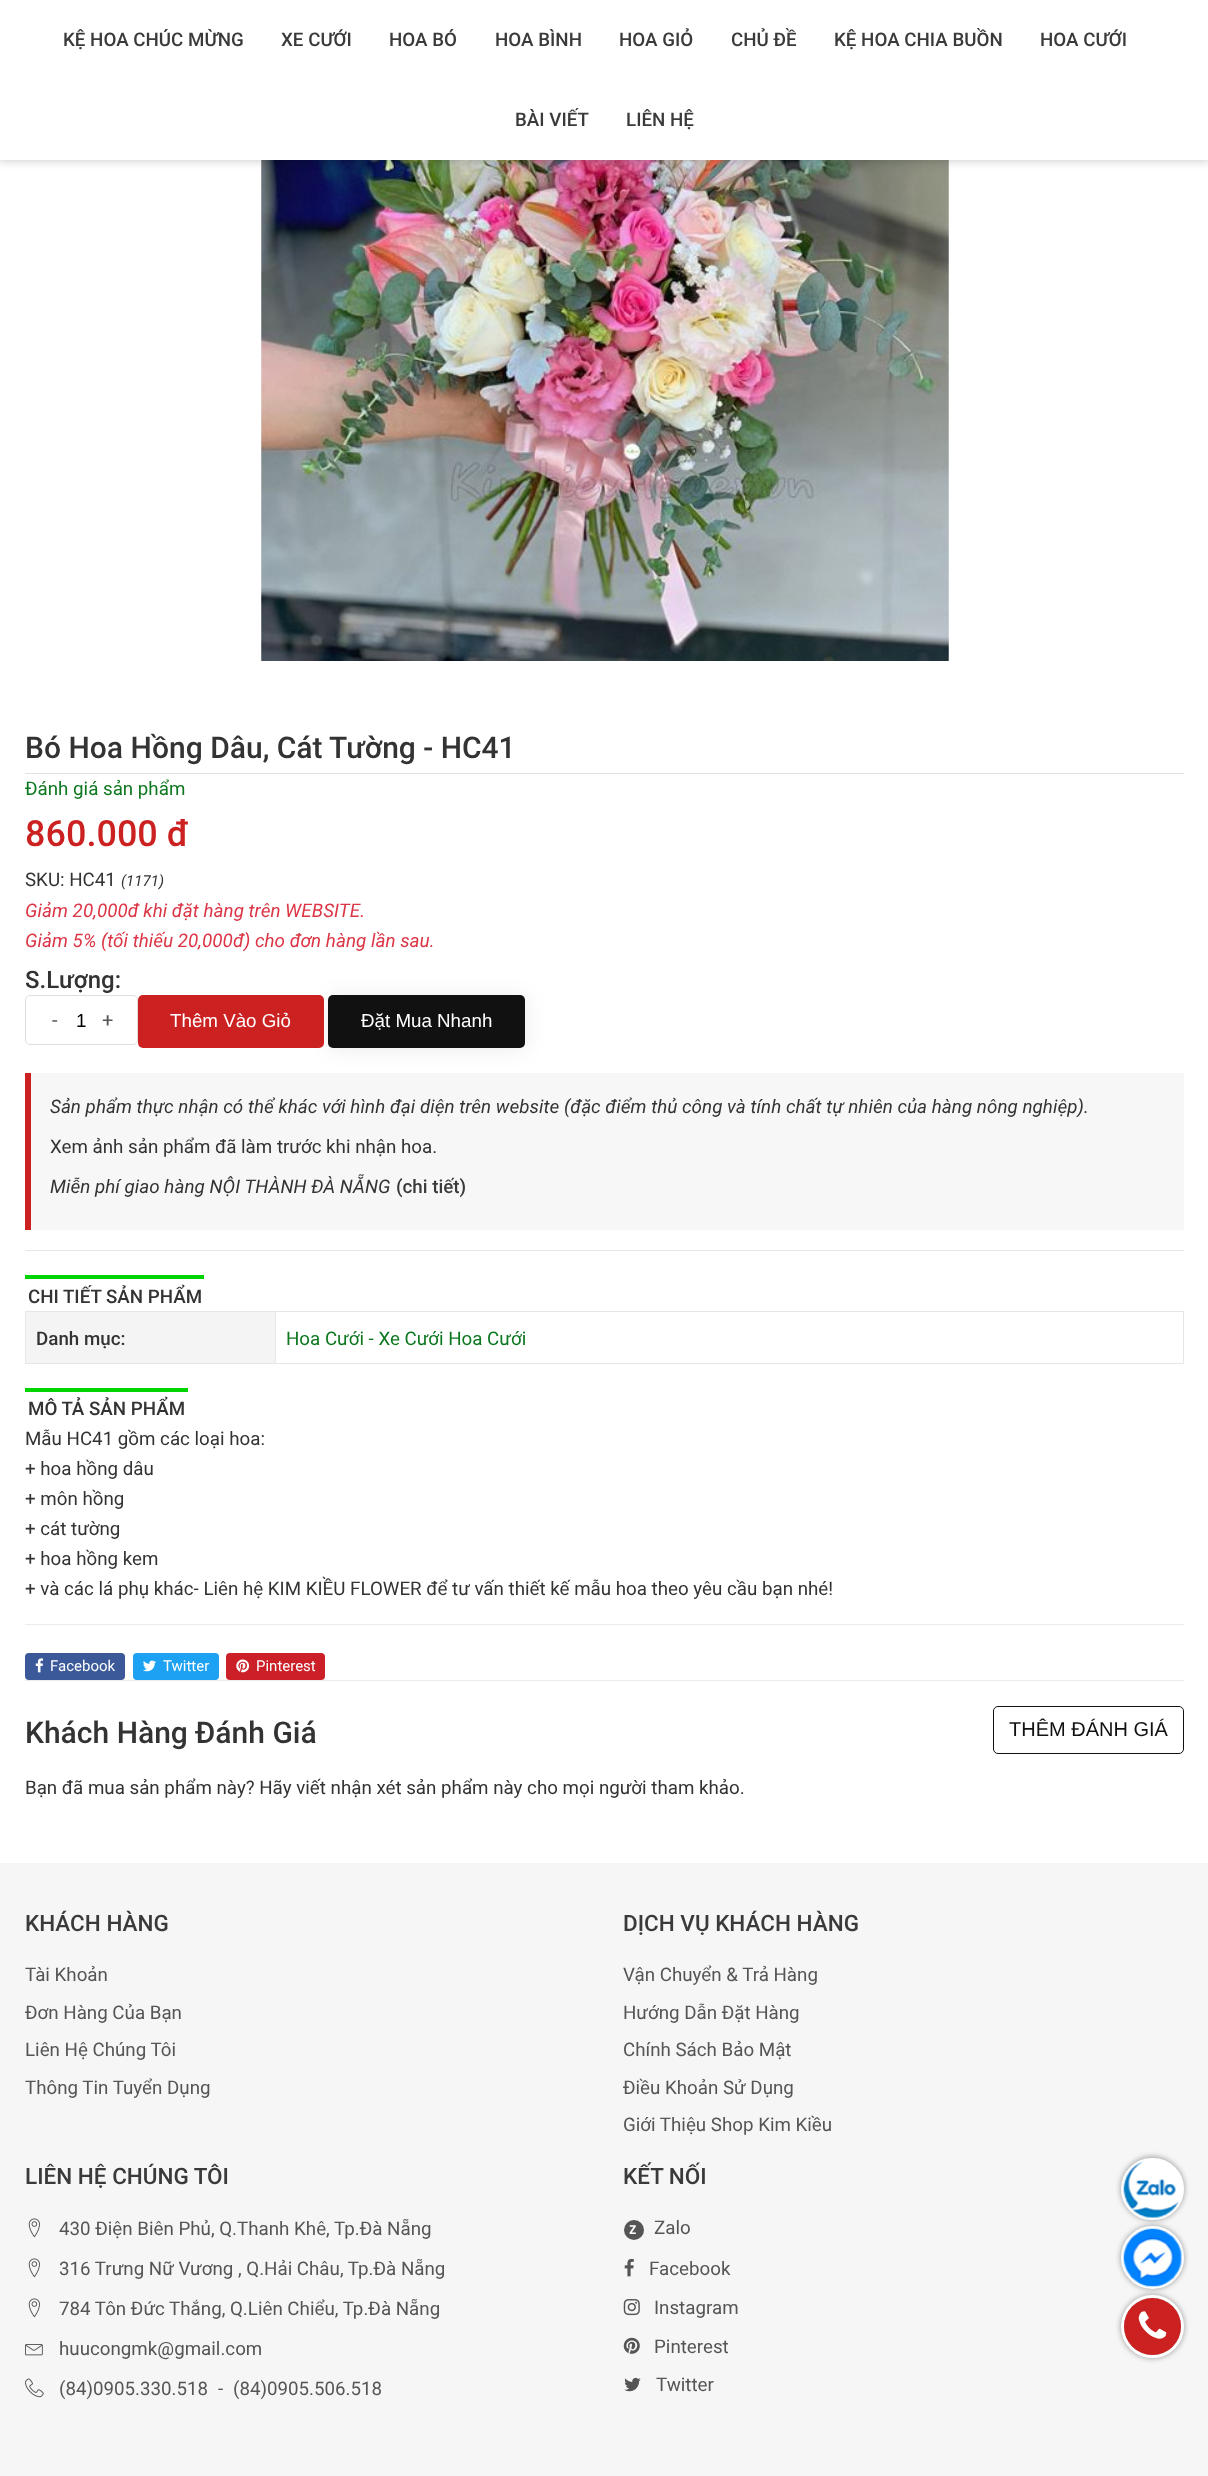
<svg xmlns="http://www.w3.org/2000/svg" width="1208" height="2476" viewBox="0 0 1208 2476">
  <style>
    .t1 { font: 500 18.75px Roboto; fill: #3a3a3a; }
    .t2 { font: 500 30px Roboto; fill: #333; }
    .t3 { font: 18.75px Roboto; fill: #0e7820; }
    .t4 { font: 500 36px Roboto; fill: #cc2121; }
    .t5 { font: 18.75px Roboto; fill: #333; }
    .t6 { font: italic 15px Roboto; fill: #333; }
    .t7 { font: italic 18.75px Roboto; fill: #dc3545; }
    .t8 { font: 500 24px Roboto; fill: #333; }
    .t9 { font: 20px Roboto; fill: #555; }
    .t10 { font: 18.75px Liberation Sans; fill: #000; }
    .t11 { font: 18.75px Liberation Sans; fill: #fff; }
    .t12 { font: italic 18.75px Roboto; fill: #333; }
    .t13 { font: 500 18.75px Roboto; fill: #333; }
    .t14 { font: 15px Roboto; fill: #fff; }
    .t15 { font: 20px Liberation Sans; fill: #111; }
    .t16 { font: 500 22.5px Roboto; fill: #3a3a3a; }
    .t17 { font: 18.75px Roboto; fill: #555; }
    .t18 { font: bold 12px DejaVu Sans Mono; fill: #fff; }
  </style>
  <rect width="100%" height="100%" fill="#fff"/>
  <image x="261" y="160" width="688" height="501" href="images/1.png"/>
  <rect x="-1" y="-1" width="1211" height="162" fill="#00000033" filter="blur(5px)"/>
  <rect x="0" y="0" width="1208" height="160" fill="#fff"/>
  <text x="63" y="46" class="t1">KỆ HOA CHÚC MỪNG</text>
  <text x="281" y="46" class="t1">XE CƯỚI</text>
  <text x="389" y="46" class="t1">HOA BÓ</text>
  <text x="495" y="46" class="t1">HOA BÌNH</text>
  <text x="619" y="46" class="t1">HOA GIỎ</text>
  <text x="731" y="46" class="t1">CHỦ ĐỀ</text>
  <text x="834" y="46" class="t1">KỆ HOA CHIA BUỒN</text>
  <text x="1040" y="46" class="t1">HOA CƯỚI</text>
  <text x="515" y="126" class="t1">BÀI VIẾT</text>
  <text x="626" y="126" class="t1">LIÊN HỆ</text>
  <rect x="25" y="773" width="1159" height="1" fill="#dee2e6"/>
  <text x="25" y="758" class="t2">Bó Hoa Hồng Dâu, Cát Tường - HC41</text>
  <text x="25" y="795" class="t3">Đánh giá sản phẩm</text>
  <text x="25" y="846" class="t4">860.000 đ</text>
  <text x="25" y="886" class="t5">SKU: HC41</text>
  <text x="121" y="886" class="t6">(1171)</text>
  <text x="25" y="917" class="t7">Giảm 20,000đ khi đặt hàng trên WEBSITE.</text>
  <text x="25" y="947" class="t7">Giảm 5% (tối thiếu 20,000đ) cho đơn hàng lần sau.</text>
  <text x="25" y="988" class="t8">S.Lượng:</text>
  <rect x="25.5" y="995.5" width="112" height="49" rx="4.5" fill="none" stroke="#ddd"/>
  <text x="52" y="1027" class="t9">-</text>
  <text x="76" y="1027" class="t10">1</text>
  <text x="102" y="1027" class="t9">+</text>
  <rect x="31" y="1073" width="1153" height="157" fill="#f7f7f7"/>
  <rect x="329" y="996" width="197" height="53" rx="5" fill="#00000014" filter="blur(10px)"/>
  <rect x="138" y="995" width="186" height="53" rx="5" fill="#cc2121"/>
  <text x="170" y="1027" class="t11">Thêm Vào Giỏ</text>
  <rect x="328" y="995" width="197" height="53" rx="5" fill="#111"/>
  <text x="361" y="1027" class="t11">Đặt Mua Nhanh</text>
  <rect x="25" y="1073" width="6" height="157" fill="#cc2121"/>
  <text x="50" y="1113" class="t12">Sản phẩm thực nhận có thể khác với hình đại diện trên website (đặc điểm thủ công và tính chất tự nhiên của hàng nông nghiệp).</text>
  <text x="50" y="1153" class="t5">Xem ảnh sản phẩm đã làm trước khi nhận hoa.</text>
  <text x="50" y="1193" class="t12">Miễn phí giao hàng NỘI THÀNH ĐÀ NẴNG</text>
  <text x="396" y="1193" class="t1">(chi tiết)</text>
  <rect x="25" y="1250" width="1159" height="1" fill="#e6e6e6"/>
  <text x="28" y="1303" class="t13">CHI TIẾT SẢN PHẨM</text>
  <rect x="25" y="1275" width="179" height="4" fill="#00d400"/>
  <rect x="26" y="1312" width="249" height="51" fill="#f4f4f4"/>
  <rect x="25" y="1311" width="250" height="1" fill="#e6e6e6"/>
  <rect x="25" y="1363" width="250" height="1" fill="#e6e6e6"/>
  <rect x="25" y="1311" width="1" height="53" fill="#e6e6e6"/>
  <text x="36" y="1345" class="t13">Danh mục:</text>
  <rect x="275.5" y="1311.5" width="908" height="52" fill="none" stroke="#e6e6e6"/>
  <text x="286" y="1345" class="t3">Hoa Cưới - Xe Cưới Hoa Cưới</text>
  <text x="28" y="1415" class="t13">MÔ TẢ SẢN PHẨM</text>
  <rect x="25" y="1388" width="163" height="4" fill="#00d400"/>
  <text x="25" y="1445" class="t5">Mẫu HC41 gồm các loại hoa:</text>
  <text x="25" y="1475" class="t5">+ hoa hồng dâu</text>
  <text x="25" y="1505" class="t5">+ môn hồng</text>
  <text x="25" y="1535" class="t5">+ cát tường</text>
  <text x="25" y="1565" class="t5">+ hoa hồng kem</text>
  <text x="25" y="1595" class="t5">+ và các lá phụ khác- Liên hệ KIM KIỀU FLOWER để tư vấn thiết kế mẫu hoa theo yêu cầu bạn nhé!</text>
  <rect x="25" y="1624" width="1159" height="1" fill="#ebebeb"/>
  <rect x="25" y="1653" width="100" height="27" rx="4" fill="#3b5999"/>
  <image x="35" y="1658" width="9" height="15" href="images/2.png"/>
  <text x="50" y="1671" class="t14">Facebook</text>
  <rect x="133" y="1653" width="86" height="27" rx="4" fill="#1da1f2"/>
  <image x="143" y="1660" width="13" height="12" href="images/3.png"/>
  <text x="163" y="1671" class="t14">Twitter</text>
  <rect x="226" y="1653" width="99" height="27" rx="4" fill="#cb2028"/>
  <image x="236" y="1659" width="14" height="14" href="images/4.png"/>
  <text x="256" y="1671" class="t14">Pinterest</text>
  <rect x="25" y="1680" width="1159" height="1" fill="#ebebeb"/>
  <text x="25" y="1743" class="t2">Khách Hàng Đánh Giá</text>
  <rect x="993.5" y="1706.5" width="190" height="47" rx="4.5" fill="none" stroke="#111"/>
  <text x="1009" y="1736" class="t15">THÊM ĐÁNH GIÁ</text>
  <text x="25" y="1794" class="t5">Bạn đã mua sản phẩm này? Hãy viết nhận xét sản phẩm này cho mọi người tham khảo.</text>
  <rect x="0" y="1863" width="1208" height="613" fill="#f6f6f6"/>
  <text x="25" y="1931" class="t16">KHÁCH HÀNG</text>
  <text x="25" y="1981" class="t17">Tài Khoản</text>
  <text x="25" y="2019" class="t17">Đơn Hàng Của Bạn</text>
  <text x="25" y="2056" class="t17">Liên Hệ Chúng Tôi</text>
  <text x="25" y="2094" class="t17">Thông Tin Tuyển Dụng</text>
  <text x="623" y="1931" class="t16">DỊCH VỤ KHÁCH HÀNG</text>
  <text x="623" y="1981" class="t17">Vận Chuyển &amp; Trả Hàng</text>
  <text x="623" y="2019" class="t17">Hướng Dẫn Đặt Hàng</text>
  <text x="623" y="2056" class="t17">Chính Sách Bảo Mật</text>
  <text x="623" y="2094" class="t17">Điều Khoản Sử Dụng</text>
  <text x="623" y="2131" class="t17">Giới Thiệu Shop Kim Kiều</text>
  <text x="25" y="2184" class="t16">LIÊN HỆ CHÚNG TÔI</text>
  <image x="28" y="2218" width="12" height="20" href="images/5.png"/>
  <text x="59" y="2235" class="t17">430 Điện Biên Phủ, Q.Thanh Khê, Tp.Đà Nẵng</text>
  <image x="28" y="2258" width="12" height="20" href="images/5.png"/>
  <text x="59" y="2275" class="t17">316 Trưng Nữ Vương , Q.Hải Châu, Tp.Đà Nẵng</text>
  <image x="28" y="2298" width="12" height="20" href="images/5.png"/>
  <text x="59" y="2315" class="t17">784 Tôn Đức Thắng, Q.Liên Chiểu, Tp.Đà Nẵng</text>
  <image x="25" y="2344" width="18" height="12" href="images/6.png"/>
  <text x="59" y="2355" class="t17">huucongmk@gmail.com</text>
  <image x="25" y="2378" width="19" height="20" href="images/7.png"/>
  <text x="59" y="2395" class="t17">(84)0905.330.518</text>
  <text x="218" y="2395" class="t17">-</text>
  <text x="233" y="2395" class="t17">(84)0905.506.518</text>
  <text x="623" y="2184" class="t16">KẾT NỐI</text>
  <circle cx="634" cy="2230" r="10" fill="#555"/>
  <text x="629" y="2234" class="t18">Z</text>
  <text x="654" y="2234" class="t17">Zalo</text>
  <image x="624" y="2258" width="10" height="19" href="images/8.png"/>
  <text x="649" y="2275" class="t17">Facebook</text>
  <image x="623" y="2299" width="17" height="17" href="images/9.png"/>
  <text x="654" y="2314" class="t17">Instagram</text>
  <image x="623" y="2337" width="17" height="17" href="images/10.png"/>
  <text x="654" y="2353" class="t17">Pinterest</text>
  <image x="624" y="2377" width="17" height="15" href="images/11.png"/>
  <text x="656" y="2391" class="t17">Twitter</text>
  <rect x="1120" y="2156" width="65" height="65" rx="32.5" fill="#b1b0b0" filter="blur(2.5px)"/>
  <rect x="1122.5" y="2159.5" width="60" height="59" rx="29.5" fill="#fff" stroke="#fff" stroke-width="3"/>
  <image x="1123" y="2161" width="56" height="57" href="images/12.png"/>
  <rect x="1120" y="2225" width="65" height="65" rx="32.5" fill="#b1b0b0" filter="blur(2.5px)"/>
  <circle cx="1152.5" cy="2257.5" r="30" fill="#fff" stroke="#fff" stroke-width="3"/>
  <image x="1123" y="2228" width="59" height="59" href="images/13.png"/>
  <rect x="1120" y="2294" width="65" height="65" rx="32.5" fill="#b1b0b0" filter="blur(2.5px)"/>
  <circle cx="1152.5" cy="2326.5" r="30" fill="none" stroke="#fff" stroke-width="3"/>
  <circle cx="1152.5" cy="2326.5" r="28.5" fill="#cc2121"/>
  <image x="1138" y="2311" width="29" height="28" href="images/14.png"/>
</svg>
